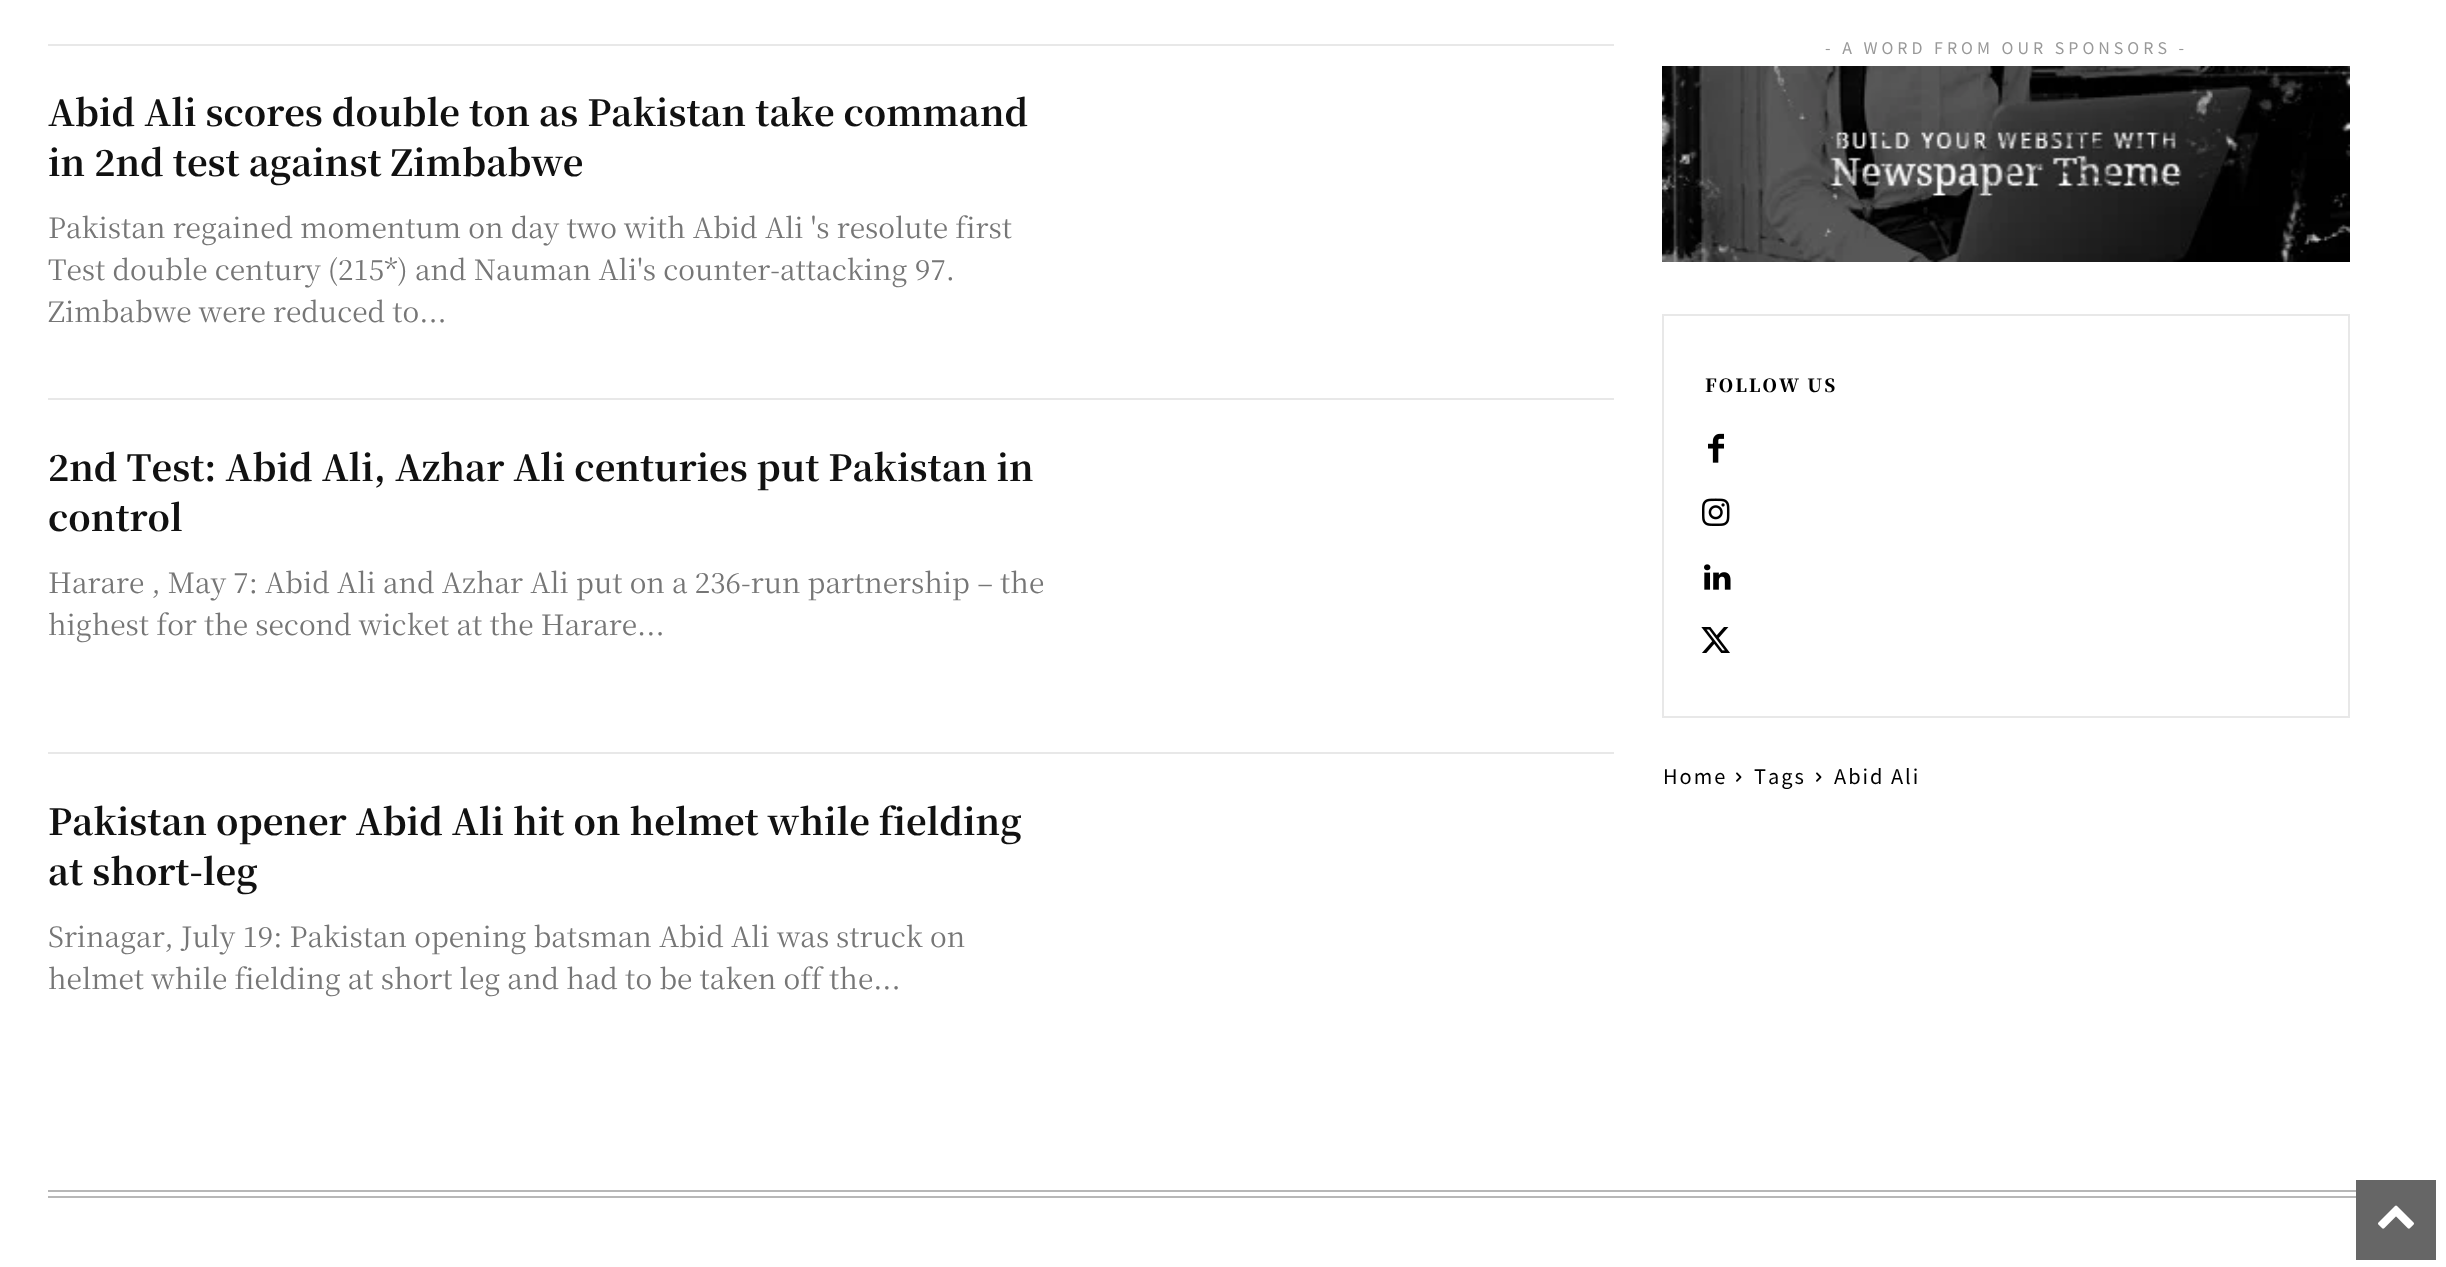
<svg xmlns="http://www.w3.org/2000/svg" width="2446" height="1267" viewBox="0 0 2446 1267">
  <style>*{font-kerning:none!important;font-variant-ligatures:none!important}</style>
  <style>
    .t1 { font: bold 36px Noto Serif JP; fill: #111; }
    .t2 { font: 28px Noto Serif JP; fill: #767676; }
    .t3 { font: 100 16px Noto Sans JP; letter-spacing: 4px; fill: #999; }
    .t4 { font: 900 18px Noto Serif JP; letter-spacing: 2px; fill: #000; }
    .t5 { font: 100 20px Noto Sans JP; letter-spacing: 2px; fill: #000; }
  </style>
  <rect width="100%" height="100%" fill="#fff"/>
  <rect x="48" y="44" width="1566" height="2" fill="#e8e8e8"/>
  <text x="48" y="126" class="t1">Abid Ali scores double ton as Pakistan take command</text>
  <text x="48" y="176" class="t1">in 2nd test against Zimbabwe</text>
  <text x="48" y="238" class="t2">Pakistan regained momentum on day two with Abid Ali 's resolute first</text>
  <text x="48" y="280" class="t2">Test double century (215*) and Nauman Ali's counter-attacking</text>
  <text x="915" y="280" class="t2">97.</text>
  <text x="48" y="322" class="t2">Zimbabwe were reduced to...</text>
  <rect x="48" y="398" width="1566" height="2" fill="#e8e8e8"/>
  <text x="48" y="481" class="t1">2nd Test: Abid Ali, Azhar Ali centuries put Pakistan in</text>
  <text x="48" y="531" class="t1">control</text>
  <text x="48" y="593" class="t2">Harare , May 7: Abid Ali and Azhar Ali put on a 236-run partnership – the</text>
  <text x="48" y="635" class="t2">highest for the second wicket at the Harare...</text>
  <rect x="48" y="752" width="1566" height="2" fill="#e8e8e8"/>
  <text x="48" y="835" class="t1">Pakistan opener Abid Ali hit on helmet while fielding</text>
  <text x="48" y="885" class="t1">at short-leg</text>
  <text x="48" y="947" class="t2">Srinagar, July 19: Pakistan opening batsman Abid Ali was</text>
  <text x="836" y="947" class="t2">struck on</text>
  <text x="48" y="989" class="t2">helmet while fielding at short leg and had to be taken off the...</text>
  <text x="1825" y="54" class="t3">- A WORD FROM OUR SPONSORS -</text>
  <image x="1662" y="66" width="688" height="196" href="images/1.png"/>
  <rect x="1663" y="315" width="686" height="402" fill="none" stroke="#e8e8e8" stroke-width="2"/>
  <text x="1705" y="392" class="t4">FOLLOW US</text>
  <image x="1708" y="433" width="16" height="30" href="images/2.png"/>
  <image x="1702" y="498" width="28" height="28" href="images/3.png"/>
  <image x="1704" y="564" width="27" height="26" href="images/4.png"/>
  <image x="1701" y="627" width="29" height="26" href="images/5.png"/>
  <text x="1663" y="784" class="t5">Home</text>
  <image x="1736" y="772" width="6" height="10" href="images/6.png"/>
  <text x="1754" y="784" class="t5">Tags</text>
  <image x="1816" y="772" width="6" height="10" href="images/6.png"/>
  <text x="1834" y="784" class="t5">Abid Ali</text>
  <rect x="48" y="1190" width="2308" height="2" fill="#b7b7b7"/>
  <rect x="48" y="1196" width="2308" height="2" fill="#b7b7b7"/>
  <rect x="2356" y="1180" width="80" height="80" fill="#666"/>
  <image x="2378" y="1205" width="36" height="24" href="images/7.png"/>
</svg>
